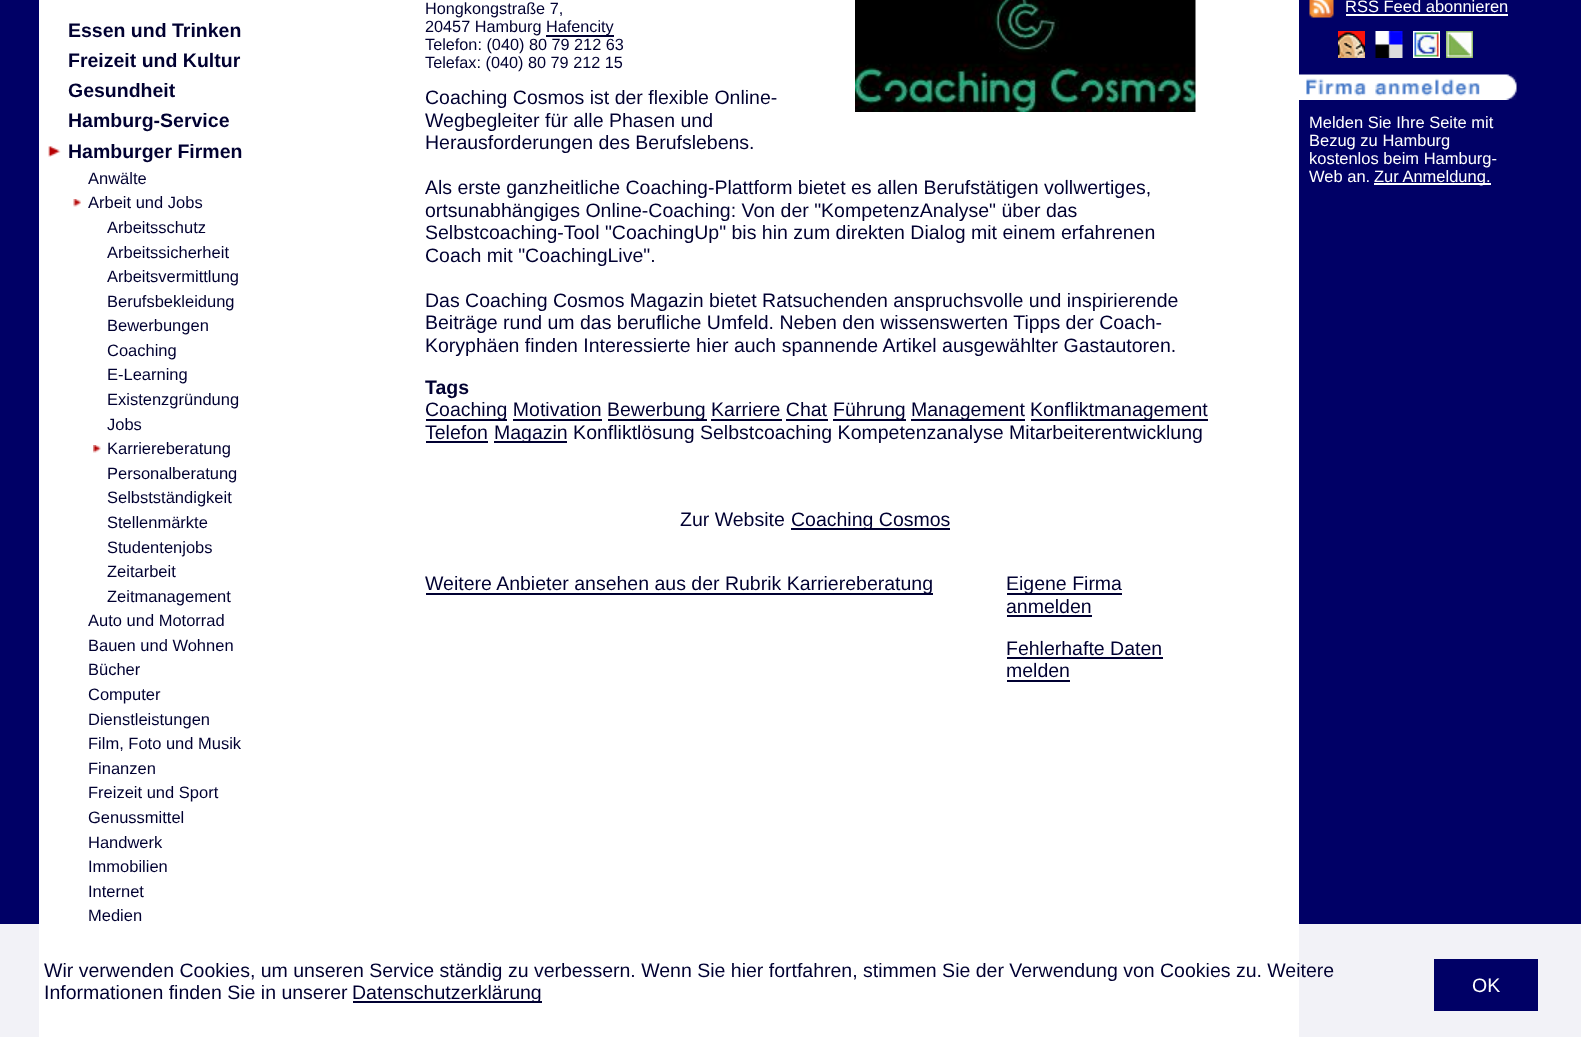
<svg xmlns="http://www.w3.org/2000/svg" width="1581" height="1037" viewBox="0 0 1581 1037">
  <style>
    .t1 { font: bold 19.5px Liberation Sans; fill: #000031; }
    .t2 { font: 16.5px Liberation Sans; fill: #000031; }
    .t3 { font: 16.25px Liberation Sans; fill: #000031; }
    .t4 { font: 19.5px Liberation Sans; fill: #000031; }
    .t5 { font: 16.5px Liberation Sans; fill: #fff; }
    .t6 { font: 19.5px Liberation Sans; fill: #fff; }
  </style>
  <rect width="100%" height="100%" fill="#006"/>
  <rect x="0" y="924" width="1581" height="113" fill="#f2f2f7"/>
  <rect x="321" y="0" width="978" height="1037" fill="#fff"/>
  <rect x="39" y="0" width="282" height="1037" fill="#fff"/>
  <text x="68" y="37" class="t1">Essen und Trinken</text>
  <text x="68" y="67" class="t1">Freizeit und Kultur</text>
  <text x="68" y="97" class="t1">Gesundheit</text>
  <text x="68" y="127" class="t1">Hamburg-Service</text>
  <image x="48" y="146" width="13" height="11" href="images/1.png"/>
  <text x="68" y="158" class="t1">Hamburger Firmen</text>
  <text x="88" y="184" class="t2">Anwälte</text>
  <image x="73" y="199" width="8" height="8" href="images/2.png"/>
  <text x="88" y="208" class="t2">Arbeit und Jobs</text>
  <text x="107" y="233" class="t2">Arbeitsschutz</text>
  <text x="107" y="258" class="t2">Arbeitssicherheit</text>
  <text x="107" y="282" class="t2">Arbeitsvermittlung</text>
  <text x="107" y="307" class="t2">Berufsbekleidung</text>
  <text x="107" y="331" class="t2">Bewerbungen</text>
  <text x="107" y="356" class="t2">Coaching</text>
  <text x="107" y="380" class="t2">E-Learning</text>
  <text x="107" y="405" class="t2">Existenzgründung</text>
  <text x="107" y="430" class="t2">Jobs</text>
  <image x="93" y="445" width="8" height="8" href="images/3.png"/>
  <text x="107" y="454" class="t2">Karriereberatung</text>
  <text x="107" y="479" class="t2">Personalberatung</text>
  <text x="107" y="503" class="t2">Selbstständigkeit</text>
  <text x="107" y="528" class="t2">Stellenmärkte</text>
  <text x="107" y="553" class="t2">Studentenjobs</text>
  <text x="107" y="577" class="t2">Zeitarbeit</text>
  <text x="107" y="602" class="t2">Zeitmanagement</text>
  <text x="88" y="626" class="t2">Auto und Motorrad</text>
  <text x="88" y="651" class="t2">Bauen und Wohnen</text>
  <text x="88" y="675" class="t2">Bücher</text>
  <text x="88" y="700" class="t2">Computer</text>
  <text x="88" y="725" class="t2">Dienstleistungen</text>
  <text x="88" y="749" class="t2">Film, Foto und Musik</text>
  <text x="88" y="774" class="t2">Finanzen</text>
  <text x="88" y="798" class="t2">Freizeit und Sport</text>
  <text x="88" y="823" class="t2">Genussmittel</text>
  <text x="88" y="848" class="t2">Handwerk</text>
  <text x="88" y="872" class="t2">Immobilien</text>
  <text x="88" y="897" class="t2">Internet</text>
  <text x="88" y="921" class="t2">Medien</text>
  <text x="425" y="14" class="t3">Hongkongstraße 7,</text>
  <text x="425" y="32" class="t3">20457 Hamburg</text>
  <rect x="546" y="35" width="68" height="2" fill="#000031"/>
  <text x="546" y="32" class="t3">Hafencity</text>
  <text x="425" y="50" class="t3">Telefon: (040) 80 79 212 63</text>
  <text x="425" y="68" class="t3">Telefax: (040) 80 79 212 15</text>
  <image x="855" y="0" width="341" height="112" href="images/4.png"/>
  <text x="425" y="104" class="t4">Coaching Cosmos ist der flexible Online-</text>
  <text x="425" y="127" class="t4">Wegbegleiter für alle Phasen und</text>
  <text x="425" y="149" class="t4">Herausforderungen des Berufslebens.</text>
  <text x="425" y="194" class="t4">Als erste ganzheitliche Coaching-Plattform bietet es allen Berufstätigen vollwertiges,</text>
  <text x="425" y="217" class="t4">ortsunabhängiges Online-Coaching: Von der "KompetenzAnalyse" über das</text>
  <text x="425" y="239" class="t4">Selbstcoaching-Tool "CoachingUp" bis hin zum direkten Dialog mit einem erfahrenen</text>
  <text x="425" y="262" class="t4">Coach mit "CoachingLive".</text>
  <text x="425" y="307" class="t4">Das Coaching Cosmos Magazin bietet Ratsuchenden anspruchsvolle und inspirierende</text>
  <text x="425" y="329" class="t4">Beiträge rund um das berufliche Umfeld. Neben den wissenswerten Tipps der Coach-</text>
  <text x="425" y="352" class="t4">Koryphäen finden Interessierte hier auch spannende Artikel ausgewählter Gastautoren.</text>
  <text x="425" y="394" class="t1">Tags</text>
  <rect x="426" y="419" width="81" height="2" fill="#000031"/>
  <text x="425" y="416" class="t4">Coaching Motivation</text>
  <rect x="608" y="419" width="99" height="2" fill="#000031"/>
  <text x="607" y="416" class="t4">Bewerbung Karriere Chat</text>
  <rect x="833" y="419" width="73" height="2" fill="#000031"/>
  <text x="833" y="416" class="t4">Führung</text>
  <rect x="911" y="419" width="114" height="2" fill="#000031"/>
  <text x="911" y="416" class="t4">Management</text>
  <rect x="1031" y="419" width="177" height="2" fill="#000031"/>
  <text x="1030" y="416" class="t4">Konfliktmanagement</text>
  <rect x="513" y="419" width="89" height="2" fill="#000031"/>
  <rect x="711" y="419" width="71" height="2" fill="#000031"/>
  <rect x="786" y="419" width="42" height="2" fill="#000031"/>
  <text x="425" y="439" class="t4">Telefon</text>
  <rect x="426" y="441" width="62" height="2" fill="#000031"/>
  <rect x="494" y="441" width="73" height="2" fill="#000031"/>
  <text x="494" y="439" class="t4">Magazin Konfliktlösung Selbstcoaching Kompetenzanalyse Mitarbeiterentwicklung</text>
  <text x="680" y="526" class="t4">Zur Website</text>
  <rect x="791" y="528" width="159" height="2" fill="#000031"/>
  <text x="791" y="526" class="t4">Coaching Cosmos</text>
  <rect x="426" y="593" width="507" height="2" fill="#000031"/>
  <text x="425" y="590" class="t4">Weitere Anbieter ansehen aus der Rubrik Karriereberatung</text>
  <rect x="1007" y="593" width="115" height="2" fill="#000031"/>
  <text x="1006" y="590" class="t4">Eigene Firma</text>
  <text x="1006" y="613" class="t4">anmelden</text>
  <rect x="1007" y="615" width="85" height="2" fill="#000031"/>
  <text x="1006" y="655" class="t4">Fehlerhafte Daten</text>
  <rect x="1007" y="657" width="156" height="2" fill="#000031"/>
  <text x="1006" y="677" class="t4">melden</text>
  <rect x="1007" y="680" width="63" height="2" fill="#000031"/>
  <image x="1309" y="0" width="25" height="18" href="images/5.png"/>
  <text x="1345" y="12" class="t5">RSS Feed abonnieren</text>
  <rect x="1346" y="14" width="162" height="2" fill="#fff"/>
  <image x="1338" y="31" width="27" height="27" href="images/6.png"/>
  <image x="1375" y="31" width="28" height="27" href="images/7.png"/>
  <image x="1413" y="31" width="27" height="27" href="images/8.png"/>
  <image x="1446" y="31" width="27" height="27" href="images/9.png"/>
  <image x="1299" y="74" width="218" height="26" href="images/10.png"/>
  <text x="1309" y="128" class="t5">Melden Sie Ihre Seite mit</text>
  <text x="1309" y="146" class="t5">Bezug zu Hamburg</text>
  <text x="1309" y="164" class="t5">kostenlos beim Hamburg-</text>
  <text x="1309" y="182" class="t5">Web an.</text>
  <rect x="1374" y="183" width="117" height="2" fill="#fff"/>
  <text x="1374" y="182" class="t5">Zur Anmeldung.</text>
  <text x="44" y="977" class="t4">Wir verwenden Cookies, um unseren Service ständig zu verbessern. Wenn Sie hier fortfahren, stimmen Sie der Verwendung von Cookies zu. Weitere</text>
  <text x="44" y="999" class="t4">Informationen finden Sie in unserer</text>
  <rect x="353" y="1001" width="189" height="2" fill="#000031"/>
  <text x="352" y="999" class="t4">Datenschutzerklärung</text>
  <rect x="1434" y="959" width="104" height="52" fill="#006"/>
  <text x="1472" y="992" class="t6">OK</text>
</svg>
